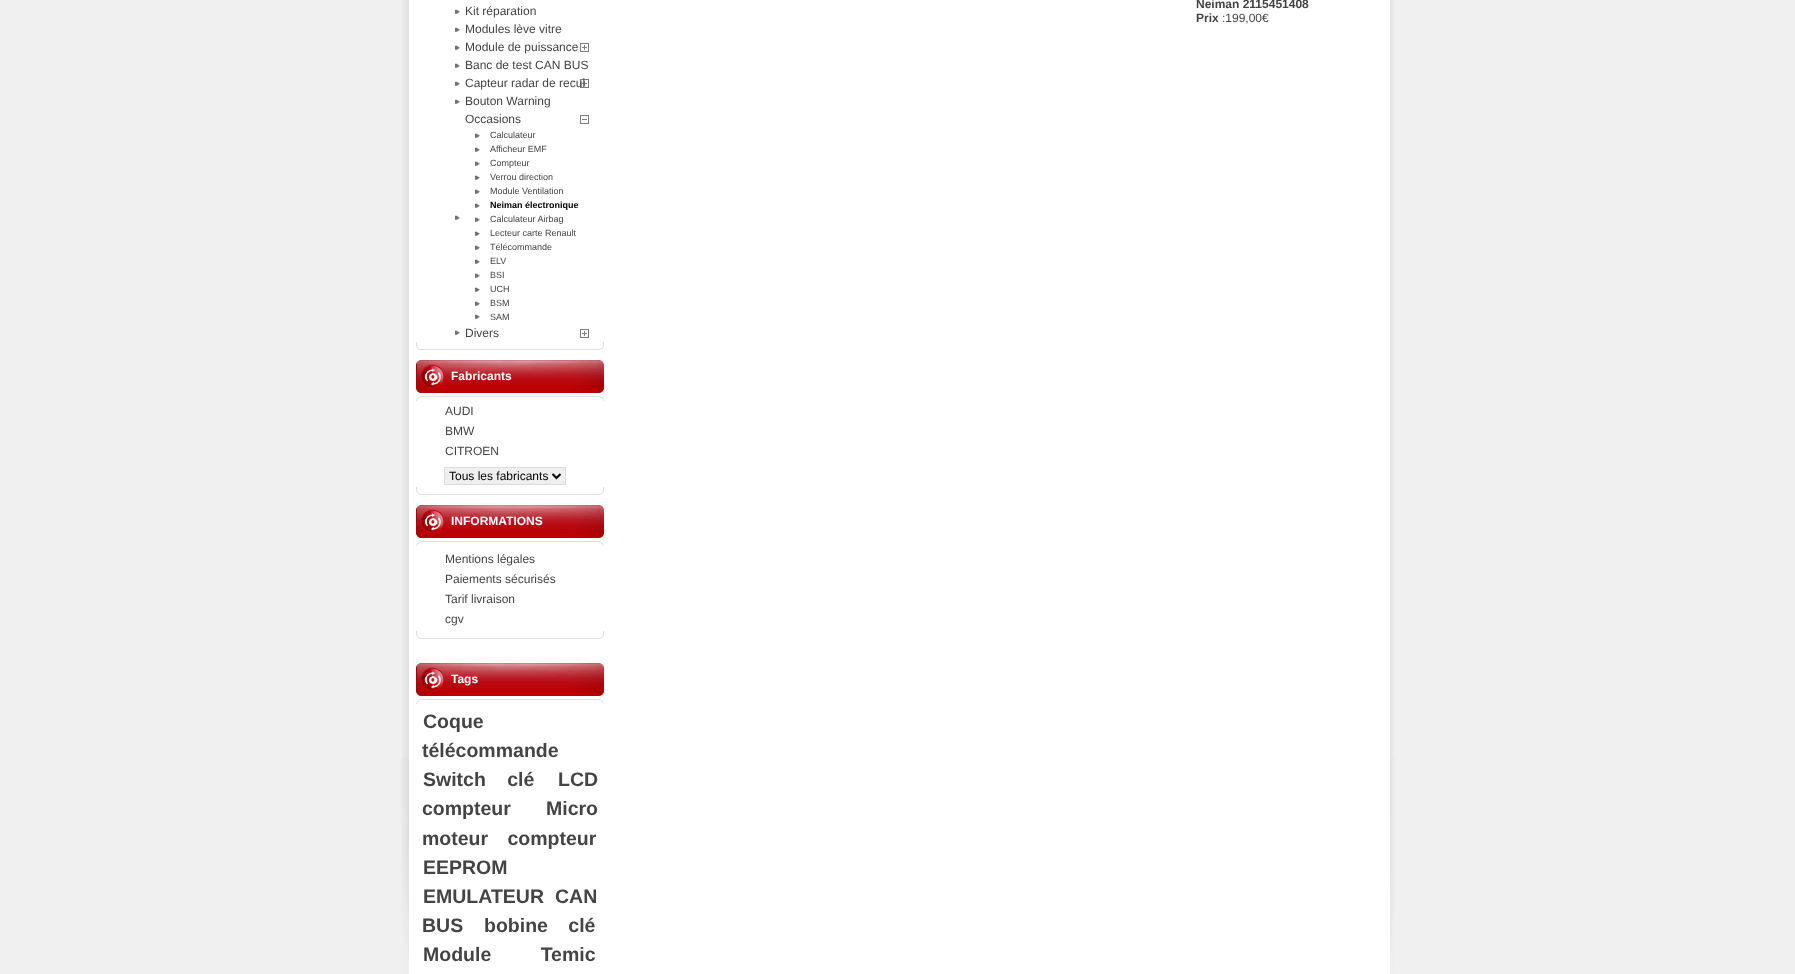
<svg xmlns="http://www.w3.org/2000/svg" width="1795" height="974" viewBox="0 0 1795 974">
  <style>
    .t1 { font: 12px Liberation Sans; fill: #444; }
    .t2 { font: 9px Liberation Sans; fill: #444; }
    .t3 { font: bold 9px Liberation Sans; fill: #000; }
    .t4 { font: bold 12px Liberation Sans; fill: #fff; }
    .t5 { font: 12px Liberation Sans; fill: #000; }
    .t6 { font: bold 19.5px Liberation Sans; fill: #444; }
    .t7 { font: bold 12px Liberation Sans; fill: #444; }
  </style>
  <rect width="100%" height="100%" fill="#f0f0f0"/>
  <image x="402" y="0" width="992" height="757" href="images/1.png"/>
  <image x="401" y="757" width="994" height="217" href="images/2.png"/>
  <image x="416" y="342" width="188" height="8" href="images/3.png"/>
  <image x="455" y="9" width="5" height="5" href="images/4.png"/>
  <text x="465" y="15" class="t1">Kit réparation</text>
  <image x="455" y="27" width="5" height="5" href="images/4.png"/>
  <text x="465" y="33" class="t1">Modules lève vitre</text>
  <image x="455" y="45" width="5" height="5" href="images/4.png"/>
  <text x="465" y="51" class="t1">Module de puissance</text>
  <image x="580" y="43" width="9" height="9" href="images/5.png"/>
  <image x="455" y="63" width="5" height="5" href="images/4.png"/>
  <text x="465" y="69" class="t1">Banc de test CAN BUS</text>
  <image x="455" y="81" width="5" height="5" href="images/4.png"/>
  <image x="580" y="79" width="9" height="9" href="images/5.png"/>
  <text x="465" y="87" class="t1">Capteur radar de recul</text>
  <image x="455" y="99" width="5" height="5" href="images/4.png"/>
  <text x="465" y="105" class="t1">Bouton Warning</text>
  <image x="455" y="215" width="5" height="5" href="images/4.png"/>
  <text x="465" y="123" class="t1">Occasions</text>
  <image x="580" y="115" width="9" height="9" href="images/6.png"/>
  <image x="475" y="133" width="5" height="5" href="images/4.png"/>
  <text x="490" y="138" class="t2">Calculateur</text>
  <image x="475" y="147" width="5" height="5" href="images/4.png"/>
  <text x="490" y="152" class="t2">Afficheur EMF</text>
  <image x="475" y="161" width="5" height="5" href="images/4.png"/>
  <text x="490" y="166" class="t2">Compteur</text>
  <image x="475" y="175" width="5" height="5" href="images/4.png"/>
  <text x="490" y="180" class="t2">Verrou direction</text>
  <image x="475" y="189" width="5" height="5" href="images/4.png"/>
  <text x="490" y="194" class="t2">Module Ventilation</text>
  <image x="475" y="203" width="5" height="5" href="images/4.png"/>
  <text x="490" y="208" class="t3">Neiman électronique</text>
  <image x="475" y="217" width="5" height="5" href="images/4.png"/>
  <text x="490" y="222" class="t2">Calculateur Airbag</text>
  <image x="475" y="231" width="5" height="5" href="images/4.png"/>
  <text x="490" y="236" class="t2">Lecteur carte Renault</text>
  <image x="475" y="245" width="5" height="5" href="images/4.png"/>
  <text x="490" y="250" class="t2">Télécommande</text>
  <image x="475" y="259" width="5" height="5" href="images/4.png"/>
  <text x="490" y="264" class="t2">ELV</text>
  <image x="475" y="273" width="5" height="5" href="images/4.png"/>
  <text x="490" y="278" class="t2">BSI</text>
  <image x="475" y="287" width="5" height="5" href="images/4.png"/>
  <text x="490" y="292" class="t2">UCH</text>
  <image x="475" y="301" width="5" height="5" href="images/4.png"/>
  <text x="490" y="306" class="t2">BSM</text>
  <image x="475" y="314" width="5" height="5" href="images/4.png"/>
  <text x="490" y="320" class="t2">SAM</text>
  <image x="455" y="330" width="5" height="5" href="images/4.png"/>
  <text x="465" y="337" class="t1">Divers</text>
  <image x="580" y="329" width="9" height="9" href="images/5.png"/>
  <image x="416" y="360" width="188" height="41" href="images/7.png"/>
  <text x="451" y="380" class="t4">Fabricants</text>
  <image x="416" y="487" width="188" height="8" href="images/3.png"/>
  <text x="445" y="415" class="t1">AUDI</text>
  <text x="445" y="435" class="t1">BMW</text>
  <text x="445" y="455" class="t1">CITROEN</text>
  <rect x="444.5" y="467.5" width="121" height="17" fill="#efefef" stroke="#ddd"/>
  <path d="M552.5 474L556.5 478L560.5 474" fill="none" stroke="#000" stroke-width="2"/>
  <text x="449" y="480" class="t5">Tous les fabricants</text>
  <image x="416" y="505" width="188" height="41" href="images/7.png"/>
  <text x="451" y="525" class="t4">INFORMATIONS</text>
  <image x="416" y="631" width="188" height="8" href="images/3.png"/>
  <text x="445" y="563" class="t1">Mentions légales</text>
  <text x="445" y="583" class="t1">Paiements sécurisés</text>
  <text x="445" y="603" class="t1">Tarif livraison</text>
  <text x="445" y="623" class="t1">cgv</text>
  <image x="416" y="663" width="188" height="41" href="images/7.png"/>
  <text x="451" y="683" class="t4">Tags</text>
  <text x="423" y="728" class="t6">Coque</text>
  <text x="422" y="757" class="t6">télécommande</text>
  <text x="423" y="786" word-spacing="16" class="t6">Switch clé</text>
  <text x="558" y="786" class="t6">LCD</text>
  <text x="422" y="815" class="t6">compteur</text>
  <text x="546" y="815" class="t6">Micro</text>
  <text x="422" y="845" word-spacing="14" class="t6">moteur compteur</text>
  <text x="423" y="874" class="t6">EEPROM</text>
  <text x="423" y="903" class="t6">EMULATEUR</text>
  <text x="555" y="903" class="t6">CAN</text>
  <text x="422" y="932" class="t6">BUS</text>
  <text x="484" y="932" word-spacing="15" class="t6">bobine clé</text>
  <text x="423" y="961" word-spacing="44" class="t6">Module Temic</text>
  <text x="1196" y="8" class="t7">Neiman 2115451408</text>
  <text x="1196" y="22" class="t7">Prix</text>
  <text x="1222" y="22" class="t1">:199,00€</text>
</svg>
